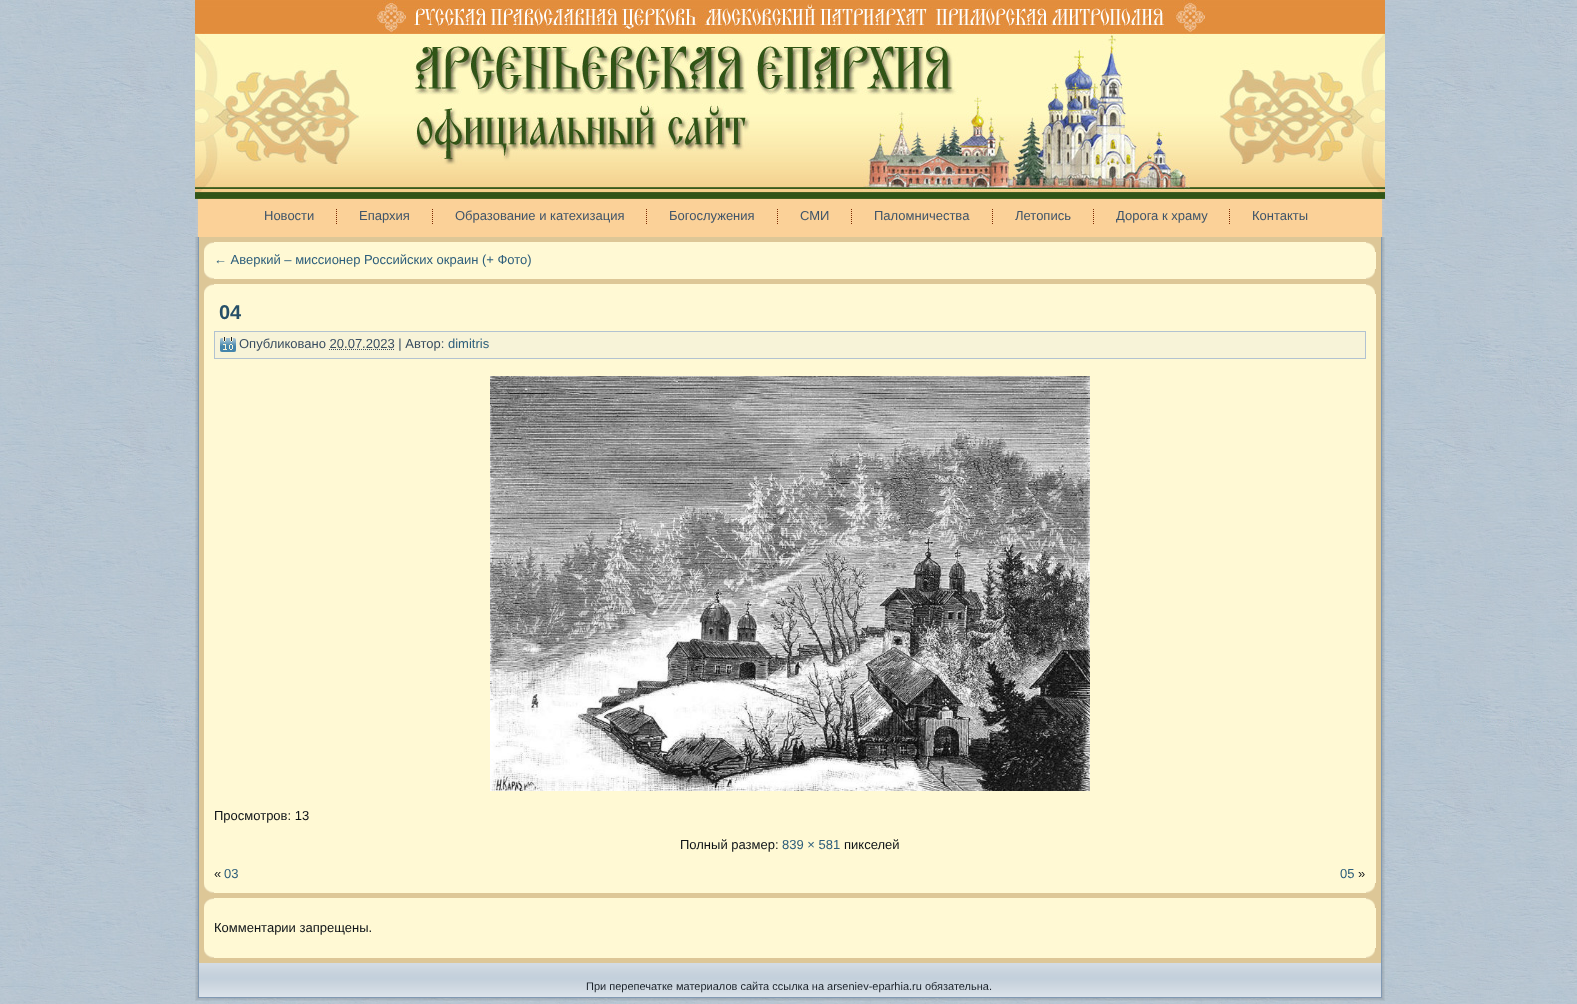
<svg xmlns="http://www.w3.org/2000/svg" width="1577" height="1004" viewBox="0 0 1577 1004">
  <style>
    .t1 { font: 13px Liberation Sans; fill: #3f5469; }
    .t2 { font: 13px Liberation Sans; fill: #2d5e7b; }
    .t3 { font: bold 20px Liberation Sans; fill: #275068; }
    .t4 { font: 13px Liberation Sans; fill: #394d60; }
    .t5 { font: 13px Liberation Sans; fill: #0d1216; }
    .t6 { font: 11px Liberation Sans; fill: #192129; }
  </style>
  <rect width="100%" height="100%" fill="#fff"/>
  <image x="0" y="0" width="1577" height="1004" href="images/1.png"/>
  <image x="195" y="0" width="1190" height="199" href="images/2.png"/>
  <image x="196" y="199" width="1182" height="38" href="images/3.png"/>
  <image x="1378" y="199" width="6" height="38" href="images/4.png"/>
  <text x="264" y="220" class="t1">Новости</text>
  <image x="336" y="209" width="1" height="15" href="images/5.png"/>
  <text x="359" y="220" class="t1">Епархия</text>
  <image x="432" y="209" width="1" height="15" href="images/5.png"/>
  <text x="455" y="220" class="t1">Образование и катехизация</text>
  <image x="646" y="209" width="1" height="15" href="images/5.png"/>
  <text x="669" y="220" class="t1">Богослужения</text>
  <image x="777" y="209" width="1" height="15" href="images/5.png"/>
  <text x="800" y="220" class="t1">СМИ</text>
  <image x="851" y="209" width="1" height="15" href="images/5.png"/>
  <text x="874" y="220" class="t1">Паломничества</text>
  <image x="992" y="209" width="1" height="15" href="images/5.png"/>
  <text x="1015" y="220" class="t1">Летопись</text>
  <image x="1093" y="209" width="1" height="15" href="images/5.png"/>
  <text x="1116" y="220" class="t1">Дорога к храму</text>
  <image x="1229" y="209" width="1" height="15" href="images/5.png"/>
  <text x="1252" y="220" class="t1">Контакты</text>
  <image x="195" y="237" width="4" height="13" href="images/6.png"/>
  <image x="1381" y="237" width="4" height="13" href="images/7.png"/>
  <image x="195" y="250" width="4" height="738" href="images/8.png"/>
  <rect x="199" y="237" width="1182" height="726" fill="#ddc797"/>
  <image x="204" y="242" width="10" height="10" href="images/9.png"/>
  <rect x="214" y="242" width="1152" height="10" fill="#fff9d4"/>
  <image x="1366" y="242" width="9" height="10" href="images/10.png"/>
  <rect x="204" y="252" width="10" height="17" fill="#fff9d4"/>
  <rect x="214" y="252" width="1162" height="17" fill="#fff9d4"/>
  <text x="214" y="264" class="t2">← Аверкий – миссионер Российских окраин (+ Фото)</text>
  <image x="204" y="269" width="10" height="10" href="images/11.png"/>
  <rect x="214" y="269" width="1152" height="10" fill="#fff9d4"/>
  <image x="1366" y="269" width="9" height="10" href="images/12.png"/>
  <image x="204" y="284" width="10" height="10" href="images/9.png"/>
  <rect x="214" y="284" width="1152" height="10" fill="#fff9d4"/>
  <image x="1366" y="284" width="9" height="10" href="images/10.png"/>
  <rect x="204" y="294" width="10" height="589" fill="#fff9d4"/>
  <rect x="214" y="294" width="1162" height="589" fill="#fff9d4"/>
  <text x="219" y="319" class="t3">04</text>
  <rect x="214.5" y="331.5" width="1151" height="27" fill="#f7f3d8" stroke="#b2c2d1"/>
  <image x="220" y="337" width="16" height="15" href="images/13.png"/>
  <text x="239" y="348" class="t4">Опубликовано 20.07.2023 | Автор:</text>
  <text x="448" y="348" class="t2">dimitris</text>
  <path d="M329 349.5H394" fill="none" stroke="#394d60" stroke-dasharray="1 1"/>
  <image x="490" y="376" width="600" height="415" href="images/14.png"/>
  <text x="214" y="820" class="t5">Просмотров: 13</text>
  <text x="680" y="849" class="t5">Полный размер:</text>
  <text x="782" y="849" class="t2">839 × 581</text>
  <text x="844" y="849" class="t5">пикселей</text>
  <text x="214" y="878" class="t5">«</text>
  <text x="224" y="878" class="t2">03</text>
  <text x="1340" y="878" class="t2">05</text>
  <text x="1358" y="878" class="t5">»</text>
  <image x="204" y="883" width="10" height="10" href="images/11.png"/>
  <rect x="214" y="883" width="1152" height="10" fill="#fff9d4"/>
  <image x="1366" y="883" width="9" height="10" href="images/12.png"/>
  <image x="204" y="898" width="10" height="10" href="images/9.png"/>
  <rect x="214" y="898" width="1152" height="10" fill="#fff9d4"/>
  <image x="1366" y="898" width="9" height="10" href="images/10.png"/>
  <rect x="204" y="908" width="10" height="40" fill="#fff9d4"/>
  <rect x="214" y="908" width="1162" height="40" fill="#fff9d4"/>
  <text x="214" y="932" class="t5">Комментарии запрещены.</text>
  <image x="204" y="948" width="10" height="10" href="images/11.png"/>
  <rect x="214" y="948" width="1152" height="10" fill="#fff9d4"/>
  <image x="1366" y="948" width="9" height="10" href="images/12.png"/>
  <image x="195" y="988" width="13" height="13" href="images/17.png"/>
  <image x="1372" y="988" width="13" height="13" href="images/19.png"/>
  <image x="199" y="963" width="1182" height="34" href="images/15.png"/>
  <text x="586" y="990" class="t6">При перепечатке материалов сайта ссылка на arseniev-eparhia.ru обязательна.</text>
  <image x="1381" y="250" width="4" height="738" href="images/16.png"/>
  <image x="208" y="997" width="1164" height="4" href="images/18.png"/>
</svg>
